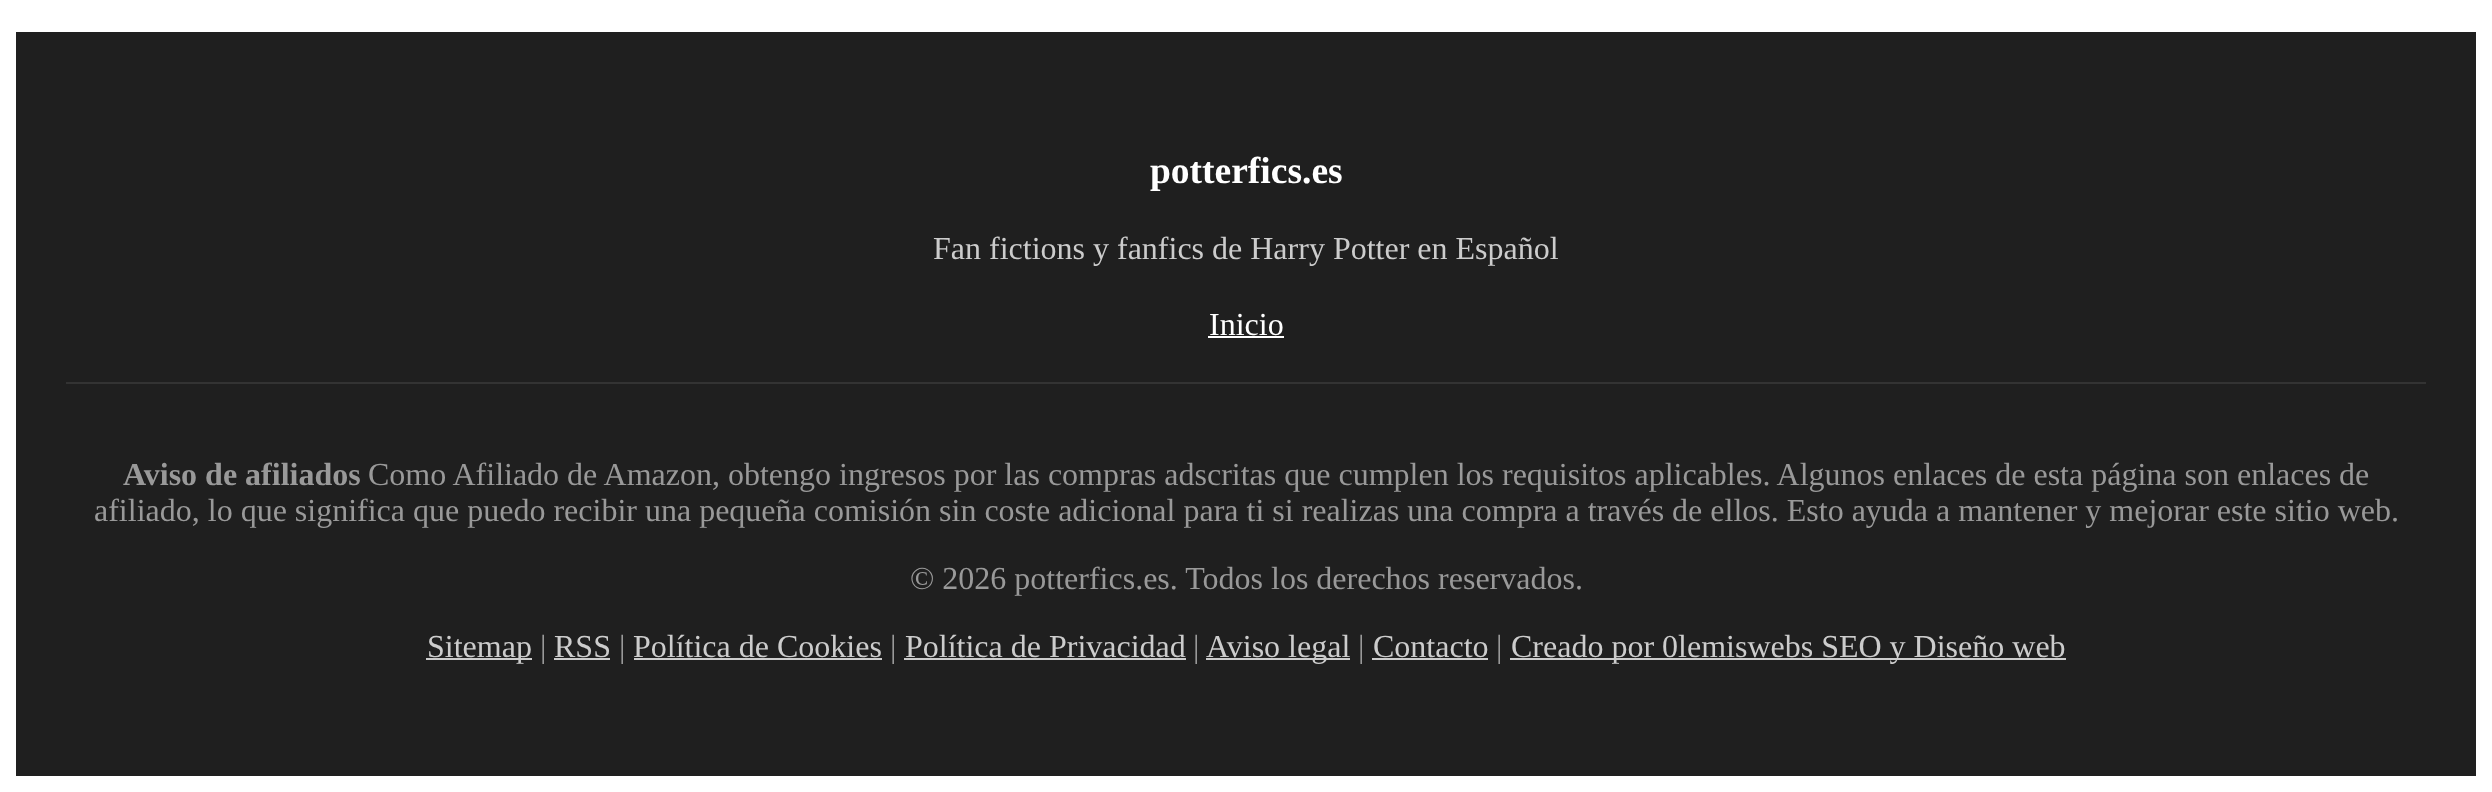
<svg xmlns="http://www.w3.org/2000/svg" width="2492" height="792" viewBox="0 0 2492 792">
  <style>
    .t1 { font: bold 37.5px Liberation Serif; fill: #fff; }
    .t2 { font: 32px Liberation Serif; fill: #ccc; }
    .t3 { font: 32px Liberation Serif; fill: #fff; }
    .t4 { font: bold 32px Liberation Serif; fill: #999; }
    .t5 { font: 32px Liberation Serif; fill: #999; }
  </style>
  <rect width="100%" height="100%" fill="#fff"/>
  <rect x="16" y="32" width="2460" height="744" fill="#1f1f1f"/>
  <text x="1150" y="183" class="t1">potterfics.es</text>
  <text x="933" y="259" class="t2">Fan fictions y fanfics de Harry Potter en Español</text>
  <text x="1209" y="335" class="t3">Inicio</text>
  <rect x="1208" y="336" width="76" height="2" fill="#fff"/>
  <rect x="66" y="382" width="2360" height="2" fill="#333"/>
  <text x="123" y="485" class="t4">Aviso de afiliados</text>
  <text x="368" y="485" class="t5">Como Afiliado de Amazon, obtengo ingresos por las compras adscritas que cumplen los requisitos aplicables. Algunos enlaces de esta página son enlaces de</text>
  <text x="94" y="521" class="t5">afiliado, lo que significa que puedo recibir una pequeña comisión sin coste adicional para ti si realizas una compra a través de ellos. Esto ayuda a mantener y mejorar este sitio web.</text>
  <text x="910" y="589" class="t5">© 2026 potterfics.es. Todos los derechos reservados.</text>
  <rect x="426" y="658" width="106" height="2" fill="#ccc"/>
  <text x="427" y="657" class="t2">Sitemap</text>
  <text x="540" y="657" class="t5">|</text>
  <text x="554" y="657" class="t2">RSS</text>
  <rect x="554" y="658" width="56" height="2" fill="#ccc"/>
  <text x="619" y="657" class="t5">|</text>
  <text x="633" y="657" class="t2">Política de Cookies</text>
  <rect x="634" y="658" width="248" height="2" fill="#ccc"/>
  <text x="890" y="657" class="t5">|</text>
  <text x="905" y="657" class="t2">Política de Privacidad</text>
  <rect x="904" y="658" width="282" height="2" fill="#ccc"/>
  <text x="1193" y="657" class="t5">|</text>
  <rect x="1206" y="658" width="144" height="2" fill="#ccc"/>
  <text x="1206" y="657" class="t2">Aviso legal</text>
  <text x="1358" y="657" class="t5">|</text>
  <text x="1373" y="657" class="t2">Contacto</text>
  <rect x="1372" y="658" width="116" height="2" fill="#ccc"/>
  <text x="1496" y="657" class="t5">|</text>
  <rect x="1510" y="658" width="556" height="2" fill="#ccc"/>
  <text x="1511" y="657" class="t2">Creado por 0lemiswebs SEO y Diseño web</text>
</svg>
